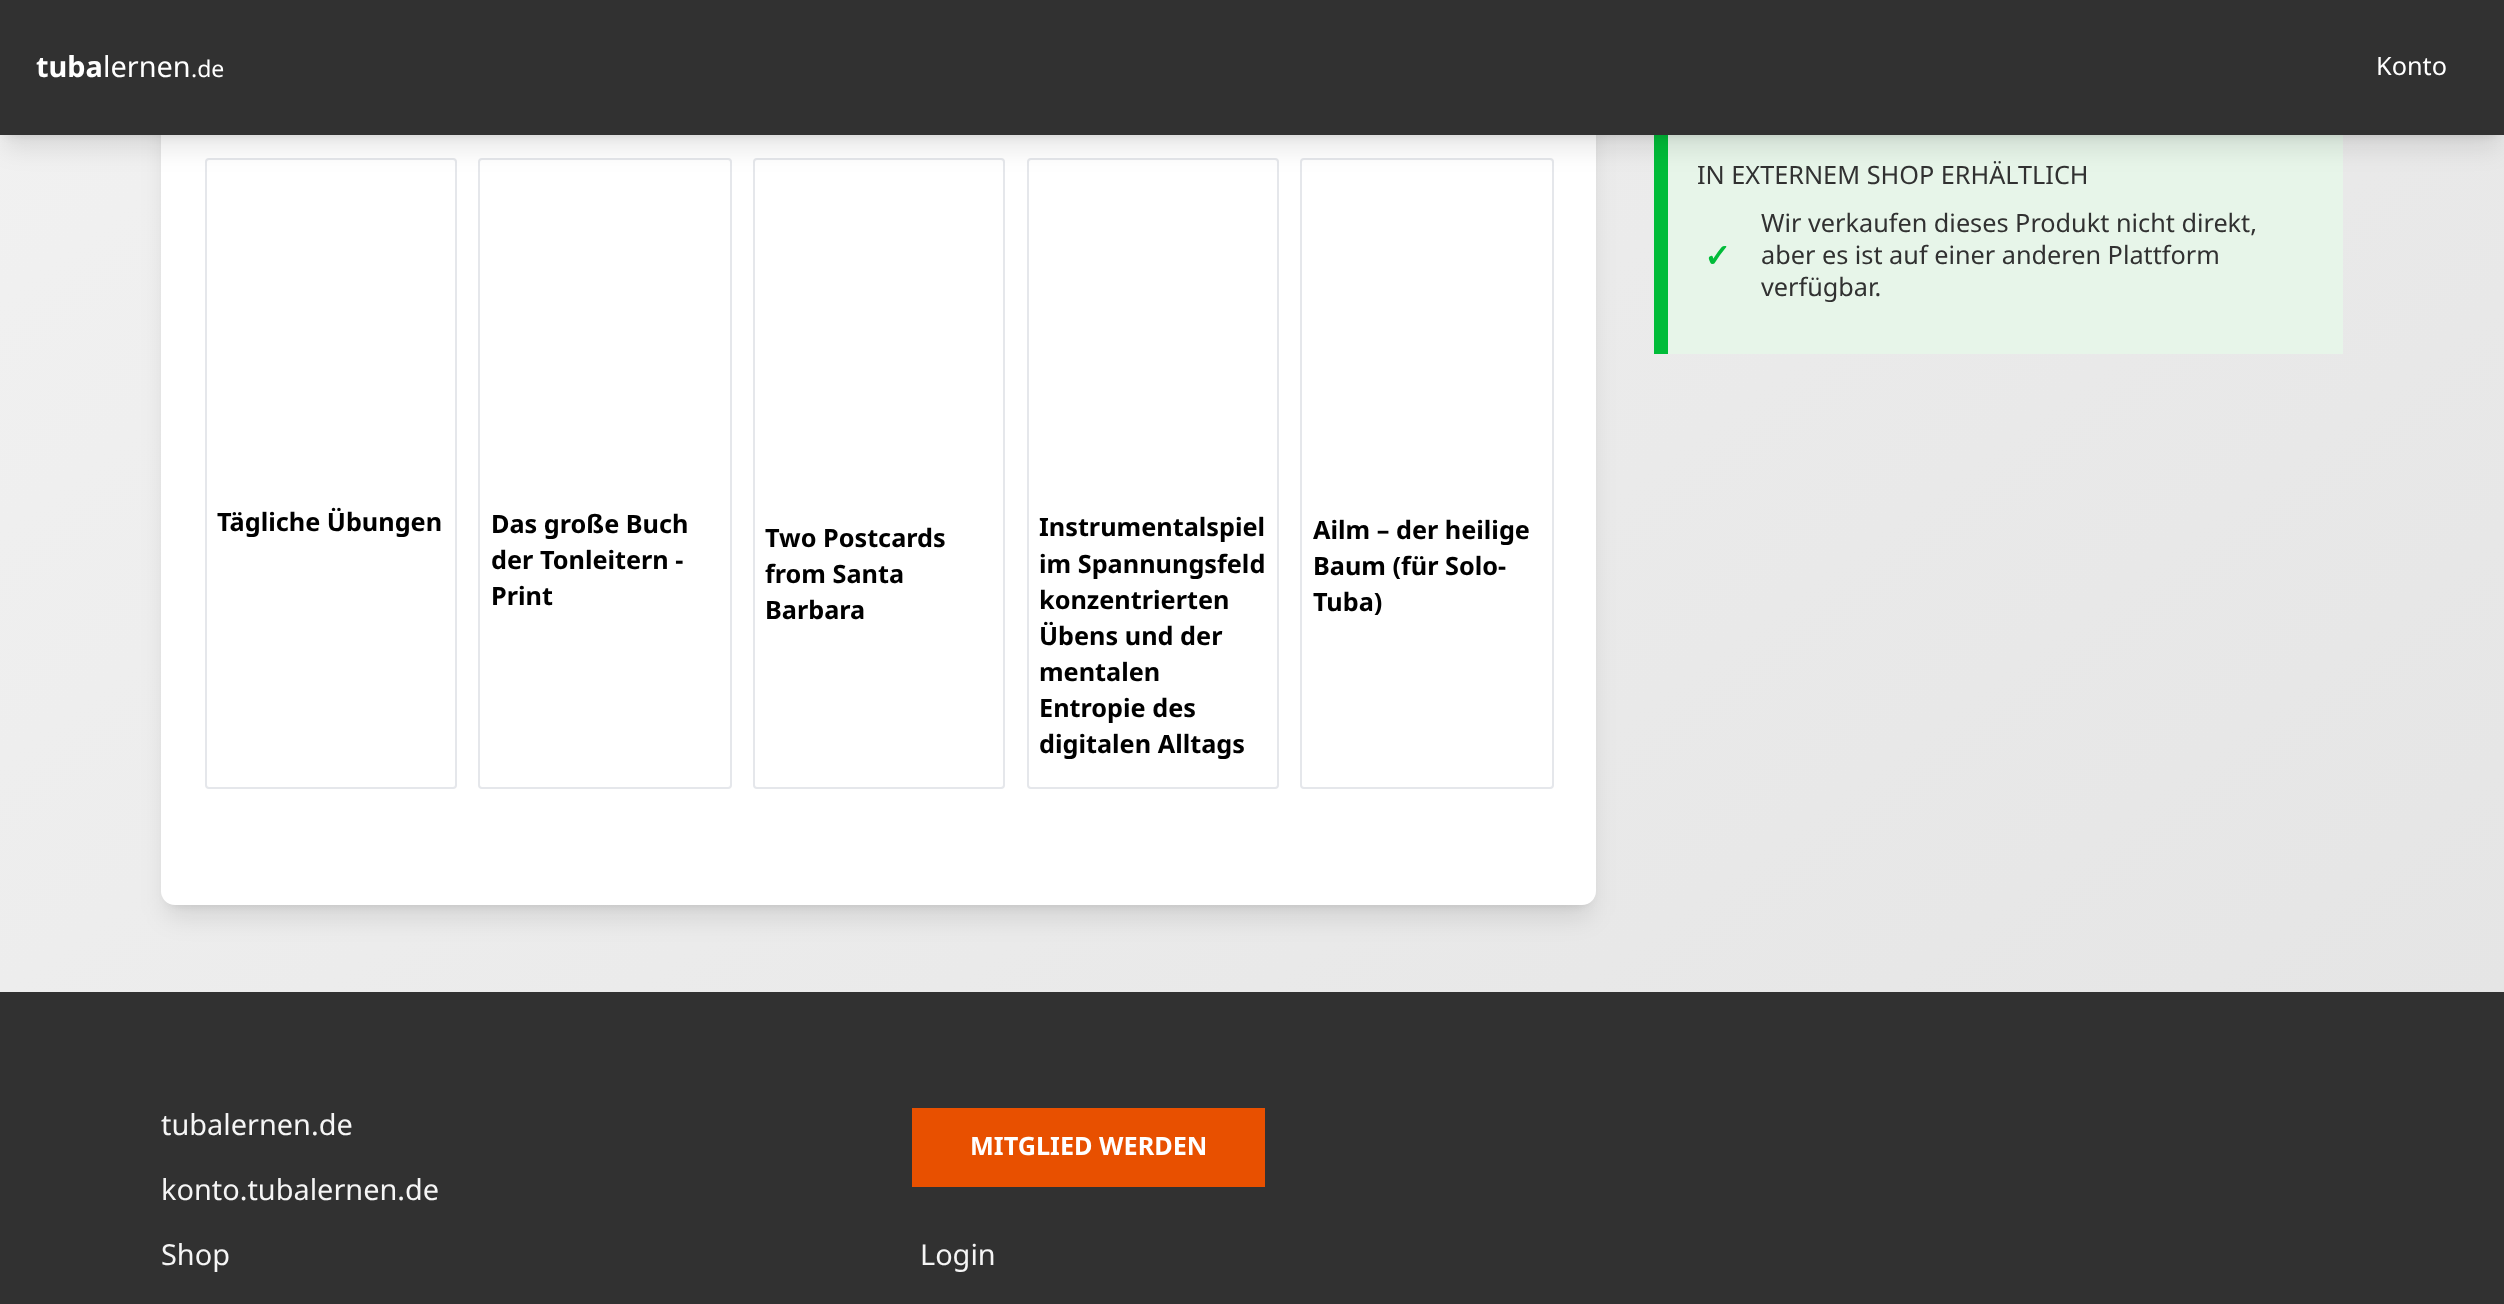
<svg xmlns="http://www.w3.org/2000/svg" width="2504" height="1304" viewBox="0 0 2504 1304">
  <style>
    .t1 { font: bold 28.9px Noto Sans; fill: #fff; }
    .t2 { font: 28.9px Noto Sans; fill: #fff; }
    .t3 { font: 23px Noto Sans; fill: #fff; }
    .t4 { font: 25.25px Noto Sans; fill: #fff; }
    .t5 { font: 25.25px Noto Sans; fill: #313131; }
    .t6 { font: bold 32px DejaVu Sans; fill: #00bc39; }
    .t7 { font: bold 25.25px Noto Sans; fill: #000; }
    .t8 { font: 28.9px Noto Sans; fill: #f5f5f5; }
    .t9 { font: bold 25.25px Noto Sans; fill: #fff; }
  </style>
  <defs>
    <linearGradient id="g1" gradientUnits="userSpaceOnUse" x1="2137" y1="1264" x2="367" y2="-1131"><stop offset="0" stop-color="#e5e5e5"/><stop offset="1" stop-color="#f5f5f5"/></linearGradient>
  </defs>
  <rect width="100%" height="100%" fill="#fff"/>
  <rect x="0" y="135" width="2504" height="857" fill="url(#g1)"/>
  <rect x="1668" y="135" width="675" height="219" fill="#e7f5e9"/>
  <rect x="1654" y="135" width="14" height="219" fill="#00bc39"/>
  <rect x="168" y="-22" width="1421" height="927" rx="7" fill="#0000001a" filter="blur(5px)"/>
  <rect x="166" y="-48" width="1425" height="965" rx="9" fill="#0000001a" filter="blur(13px)"/>
  <rect x="161" y="-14" width="1435" height="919" rx="14" fill="#fff"/>
  <rect x="7" y="12" width="2490" height="123" fill="#0000001a" filter="blur(5px)"/>
  <rect x="206" y="159" width="250" height="629" rx="3" fill="none" stroke="#e5e7eb" stroke-width="2"/>
  <rect x="479" y="159" width="252" height="629" rx="3" fill="none" stroke="#e5e7eb" stroke-width="2"/>
  <rect x="754" y="159" width="250" height="629" rx="3" fill="none" stroke="#e5e7eb" stroke-width="2"/>
  <rect x="1028" y="159" width="250" height="629" rx="3" fill="none" stroke="#e5e7eb" stroke-width="2"/>
  <rect x="1301" y="159" width="252" height="629" rx="3" fill="none" stroke="#e5e7eb" stroke-width="2"/>
  <rect x="5" y="21" width="2494" height="126" fill="#0000001a" filter="blur(13px)"/>
  <rect x="0" y="0" width="2504" height="135" fill="#313131"/>
  <text x="36" y="77" class="t1">tuba</text>
  <text x="103" y="77" class="t2">lernen</text>
  <text x="191" y="77" class="t3">.de</text>
  <text x="2376" y="75" class="t4">Konto</text>
  <text x="1697" y="184" class="t5">IN EXTERNEM SHOP ERHÄLTLICH</text>
  <text x="1704" y="267" class="t6">✓</text>
  <text x="1761" y="232" class="t5">Wir verkaufen dieses Produkt nicht direkt,</text>
  <text x="1761" y="264" class="t5">aber es ist auf einer anderen Plattform</text>
  <text x="1761" y="296" class="t5">verfügbar.</text>
  <text x="217" y="531" class="t7">Tägliche Übungen</text>
  <text x="491" y="533" class="t7">Das große Buch</text>
  <text x="491" y="569" class="t7">der Tonleitern -</text>
  <text x="491" y="605" class="t7">Print</text>
  <text x="765" y="547" class="t7">Two Postcards</text>
  <text x="765" y="583" class="t7">from Santa</text>
  <text x="765" y="619" class="t7">Barbara</text>
  <text x="1039" y="536" class="t7">Instrumentalspiel</text>
  <text x="1039" y="573" class="t7">im Spannungsfeld</text>
  <text x="1039" y="609" class="t7">konzentrierten</text>
  <text x="1039" y="645" class="t7">Übens und der</text>
  <text x="1039" y="681" class="t7">mentalen</text>
  <text x="1039" y="717" class="t7">Entropie des</text>
  <text x="1039" y="753" class="t7">digitalen Alltags</text>
  <text x="1313" y="539" class="t7">Ailm – der heilige</text>
  <text x="1313" y="575" class="t7">Baum (für Solo-</text>
  <text x="1313" y="611" class="t7">Tuba)</text>
  <rect x="0" y="992" width="2504" height="312" fill="#313131"/>
  <text x="161" y="1135" class="t8">tubalernen.de</text>
  <text x="161" y="1200" class="t8">konto.tubalernen.de</text>
  <text x="161" y="1265" class="t8">Shop</text>
  <rect x="912" y="1108" width="353" height="79" fill="#e85000"/>
  <text x="970" y="1155" class="t9">MITGLIED WERDEN</text>
  <text x="920" y="1265" class="t8">Login</text>
</svg>
